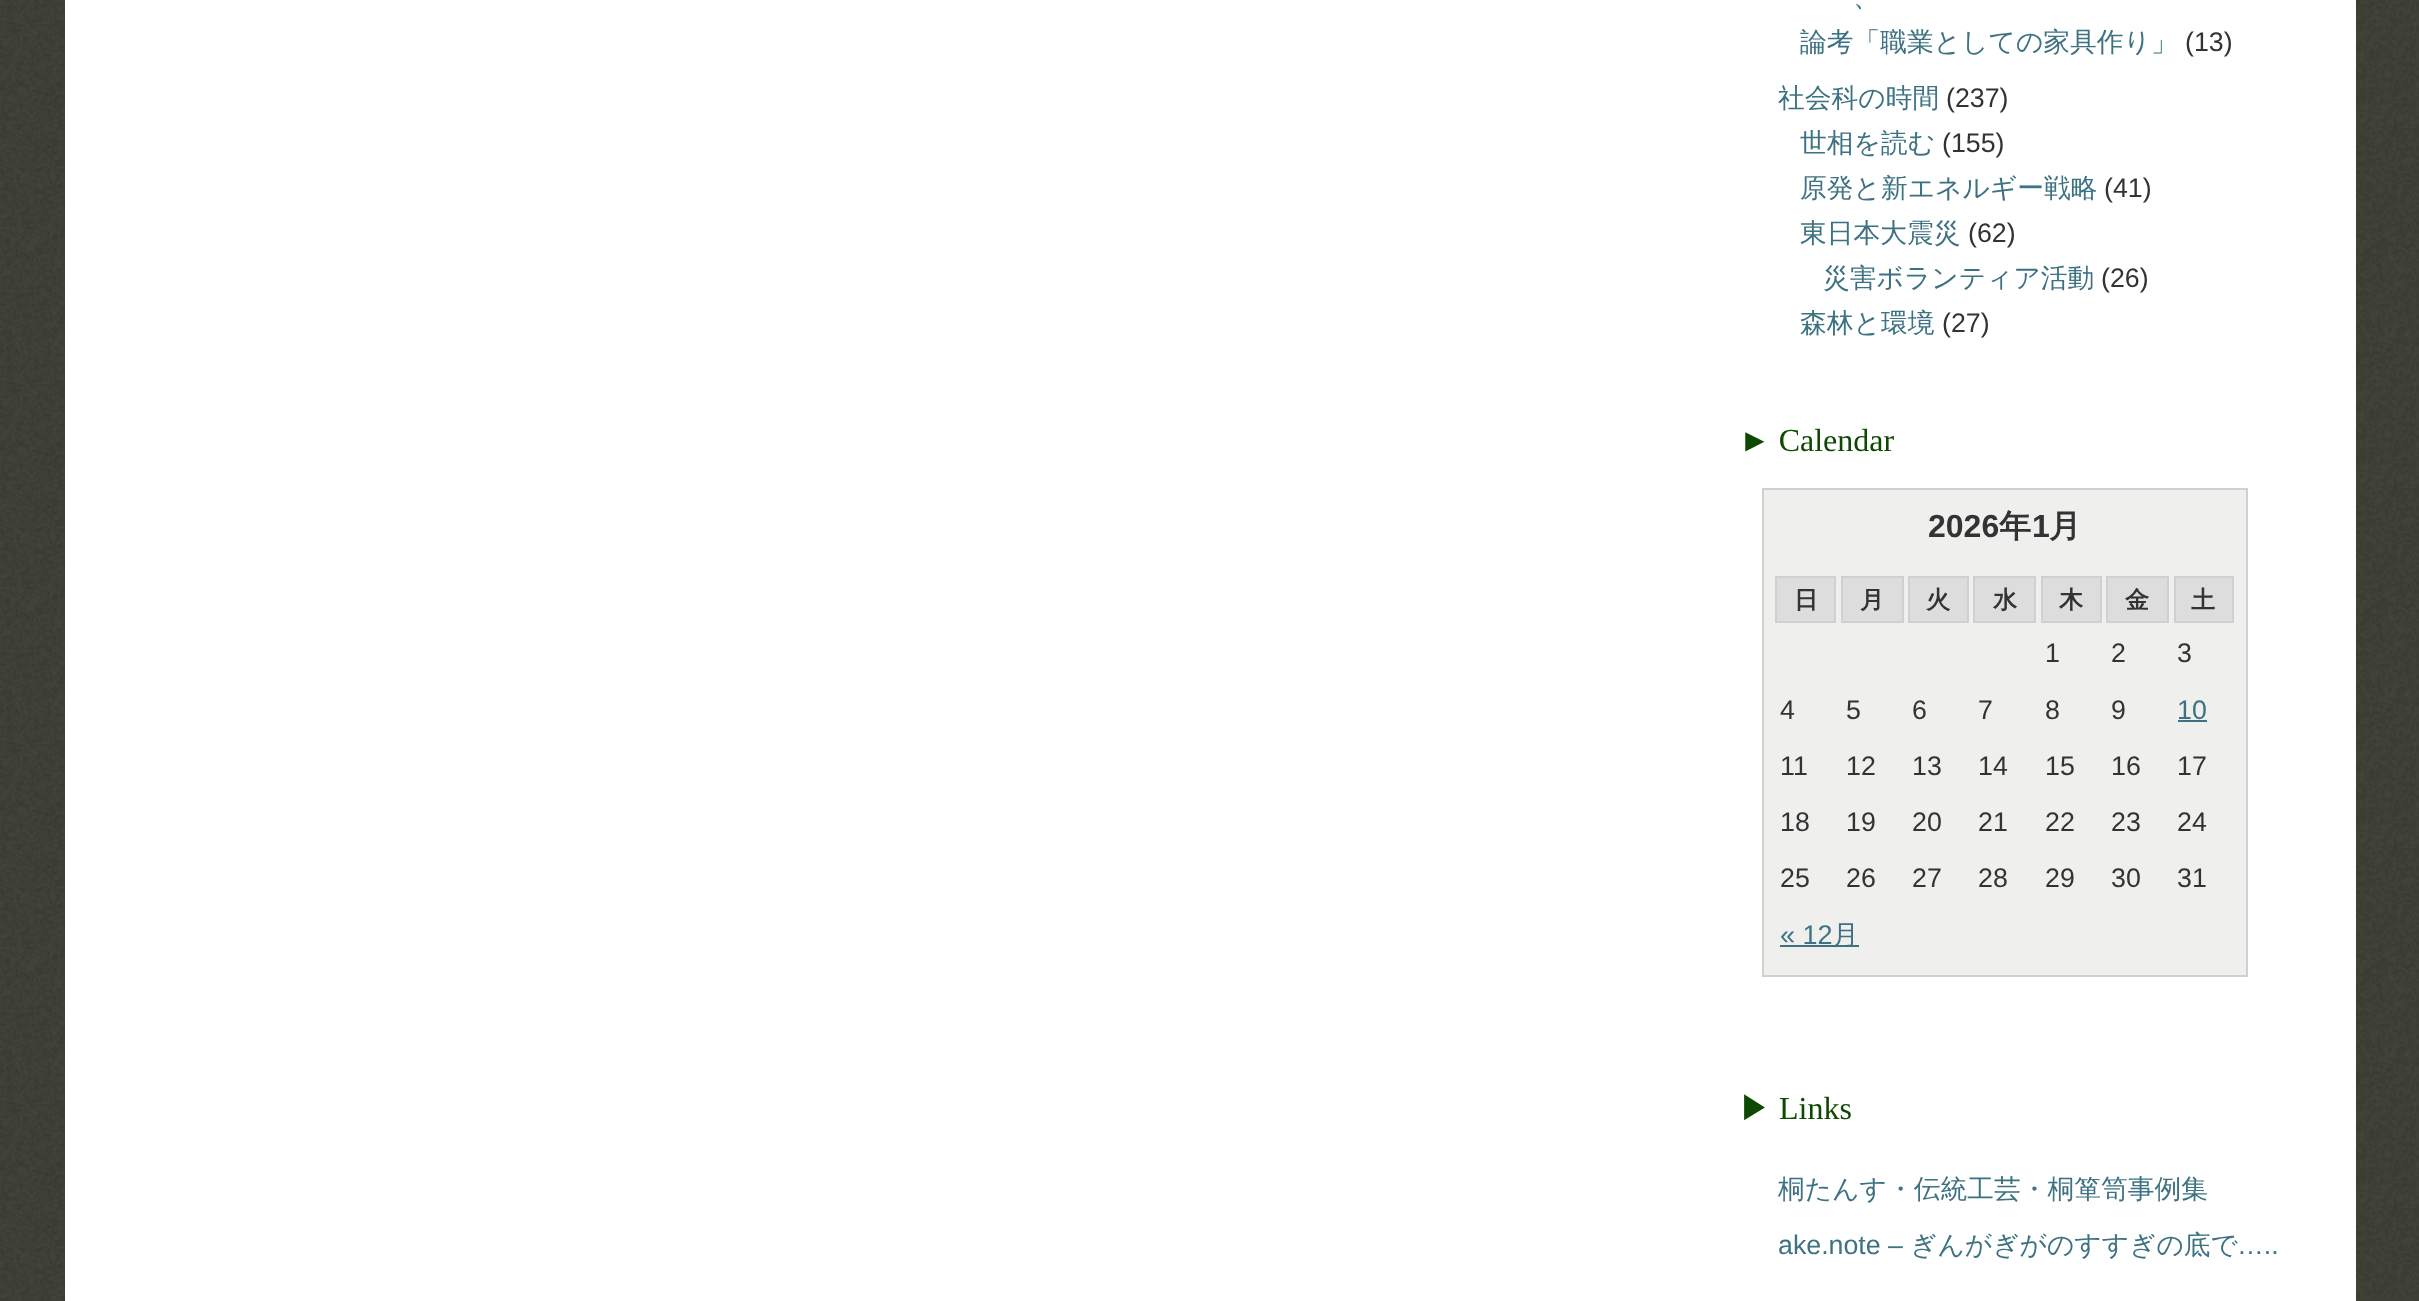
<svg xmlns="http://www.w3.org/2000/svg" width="2419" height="1301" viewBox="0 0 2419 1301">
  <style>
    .t1 { font: 500 26.75px WenQuanYi Zen Hei; fill: #3d7283; }
    .t2 { font: 26.75px Liberation Sans; fill: #333; }
    .t3 { font: 32px Liberation Serif; fill: #0e4902; }
    .t4 { font: bold 32px Liberation Sans; fill: #333; }
    .t5 { font: bold 32px WenQuanYi Zen Hei; fill: #333; }
    .t6 { font: bold 24px WenQuanYi Zen Hei; fill: #333; }
    .t7 { font: 26.75px Liberation Sans; fill: #3d7283; }
    .t8 { font: 27px Liberation Sans; fill: #3d7283; }
    .t9 { font: 500 27px WenQuanYi Zen Hei; fill: #3d7283; }
    .t10 { font: 500 32px WenQuanYi Zen Hei; fill: #0e4902; }
  </style>
  <rect width="100%" height="100%" fill="#fff"/>
  <image x="0" y="0" width="2419" height="1301" href="images/1.png"/>
  <rect x="65" y="0" width="2291" height="1301" fill="#fff"/>
  <text x="1853" y="6" class="t1">、</text>
  <text x="1800" y="51" class="t1">論考「職業としての家具作り」</text>
  <text x="2185" y="51" class="t2">(13)</text>
  <text x="1778" y="107" class="t1">社会科の時間</text>
  <text x="1946" y="107" class="t2">(237)</text>
  <text x="1800" y="152" class="t1">世相を読む</text>
  <text x="1942" y="152" class="t2">(155)</text>
  <text x="1800" y="197" class="t1">原発と新エネルギー戦略</text>
  <text x="2104" y="197" class="t2">(41)</text>
  <text x="1800" y="242" class="t1">東日本大震災</text>
  <text x="1968" y="242" class="t2">(62)</text>
  <text x="1823" y="287" class="t1">災害ボランティア活動</text>
  <text x="2101" y="287" class="t2">(26)</text>
  <text x="1800" y="332" class="t1">森林と環境</text>
  <text x="1942" y="332" class="t2">(27)</text>
  <text x="1739" y="451" class="t3">► Calendar</text>
  <rect x="1763" y="489" width="484" height="487" fill="#efefed" stroke="#d0d0ce" stroke-width="2"/>
  <text x="1928" y="537" class="t4">2026</text>
  <text x="1999" y="537" class="t5">年</text>
  <text x="2032" y="537" class="t4">1</text>
  <text x="2049" y="537" class="t5">月</text>
  <rect x="1776" y="577" width="59" height="45" fill="#ddd" stroke="#d0d0ce" stroke-width="2"/>
  <text x="1794" y="608" class="t6">日</text>
  <rect x="1842" y="577" width="61" height="45" fill="#ddd" stroke="#d0d0ce" stroke-width="2"/>
  <text x="1860" y="608" class="t6">月</text>
  <rect x="1909" y="577" width="59" height="45" fill="#ddd" stroke="#d0d0ce" stroke-width="2"/>
  <text x="1926" y="608" class="t6">火</text>
  <rect x="1974" y="577" width="61" height="45" fill="#ddd" stroke="#d0d0ce" stroke-width="2"/>
  <text x="1993" y="608" class="t6">水</text>
  <rect x="2042" y="577" width="59" height="45" fill="#ddd" stroke="#d0d0ce" stroke-width="2"/>
  <text x="2059" y="608" class="t6">木</text>
  <rect x="2107" y="577" width="61" height="45" fill="#ddd" stroke="#d0d0ce" stroke-width="2"/>
  <text x="2125" y="608" class="t6">金</text>
  <rect x="2175" y="577" width="58" height="45" fill="#ddd" stroke="#d0d0ce" stroke-width="2"/>
  <text x="2191" y="608" class="t6">土</text>
  <text x="2045" y="662" class="t2">1</text>
  <text x="2111" y="662" class="t2">2</text>
  <text x="2177" y="662" class="t2">3</text>
  <text x="1780" y="719" class="t2">4</text>
  <text x="1846" y="719" class="t2">5</text>
  <text x="1912" y="719" class="t2">6</text>
  <text x="1978" y="719" class="t2">7</text>
  <text x="2045" y="719" class="t2">8</text>
  <text x="2111" y="719" class="t2">9</text>
  <text x="2177" y="719" class="t7">10</text>
  <rect x="2178" y="720" width="29" height="2" fill="#3d7283"/>
  <text x="1780" y="775" class="t2">11</text>
  <text x="1846" y="775" class="t2">12</text>
  <text x="1912" y="775" class="t2">13</text>
  <text x="1978" y="775" class="t2">14</text>
  <text x="2045" y="775" class="t2">15</text>
  <text x="2111" y="775" class="t2">16</text>
  <text x="2177" y="775" class="t2">17</text>
  <text x="1780" y="831" class="t2">18</text>
  <text x="1846" y="831" class="t2">19</text>
  <text x="1912" y="831" class="t2">20</text>
  <text x="1978" y="831" class="t2">21</text>
  <text x="2045" y="831" class="t2">22</text>
  <text x="2111" y="831" class="t2">23</text>
  <text x="2177" y="831" class="t2">24</text>
  <text x="1780" y="887" class="t2">25</text>
  <text x="1846" y="887" class="t2">26</text>
  <text x="1912" y="887" class="t2">27</text>
  <text x="1978" y="887" class="t2">28</text>
  <text x="2045" y="887" class="t2">29</text>
  <text x="2111" y="887" class="t2">30</text>
  <text x="2177" y="887" class="t2">31</text>
  <text x="1780" y="944" class="t8">« 12</text>
  <rect x="1780" y="945" width="79" height="2" fill="#3d7283"/>
  <text x="1832" y="944" class="t9">月</text>
  <text x="1739" y="1119" class="t10">▶</text>
  <text x="1779" y="1119" class="t3">Links</text>
  <text x="1778" y="1198" class="t1">桐たんす・伝統工芸・桐箪笥事例集</text>
  <text x="1778" y="1254" class="t7">ake.note –</text>
  <text x="1910" y="1254" class="t1">ぎんがぎがのすすぎの底で</text>
  <text x="2237" y="1254" class="t7">…..</text>
</svg>
